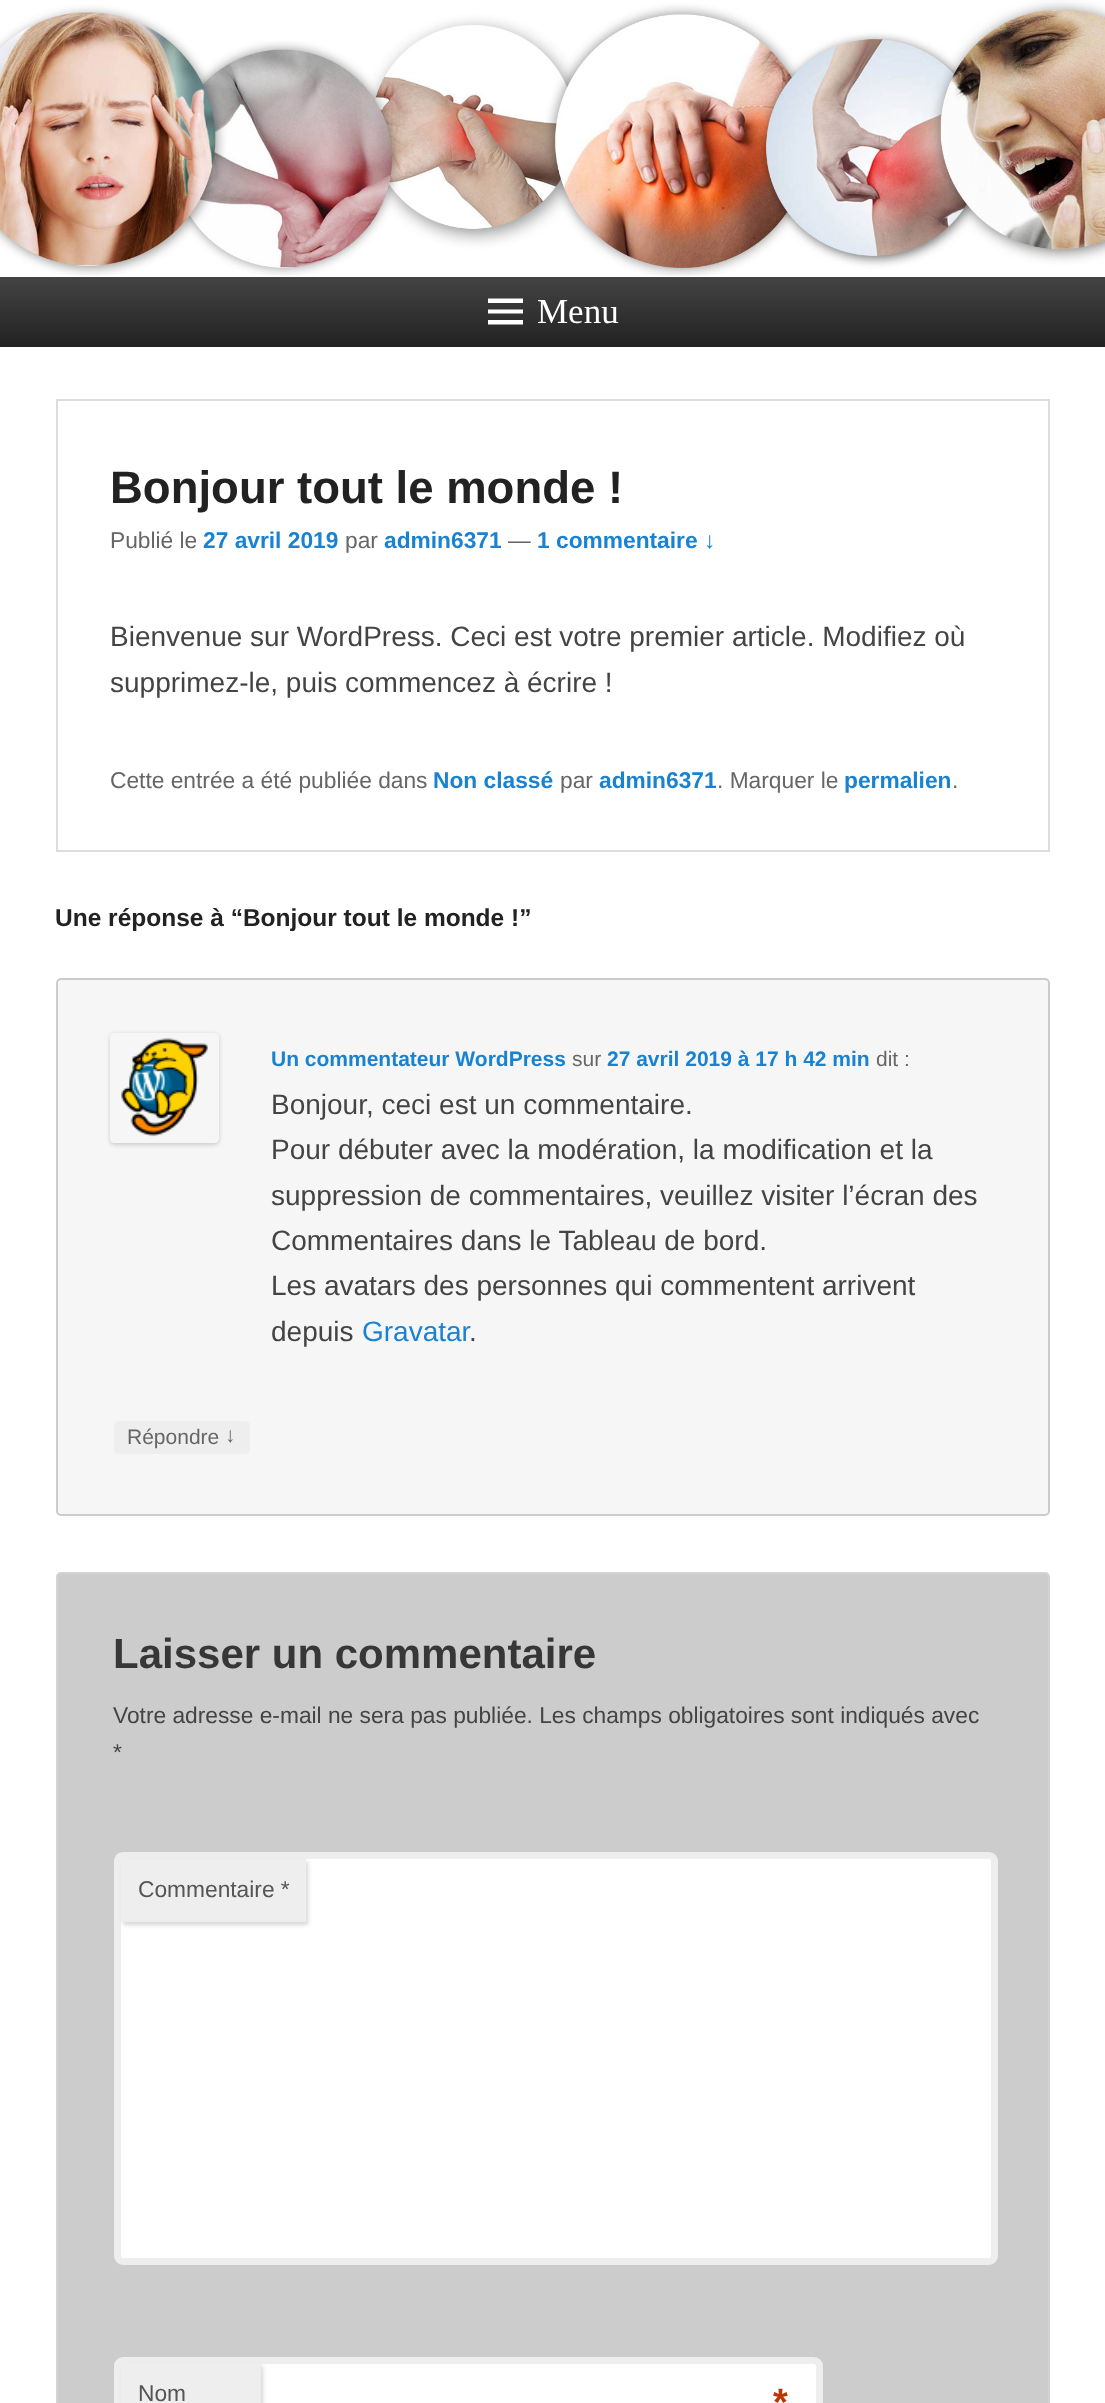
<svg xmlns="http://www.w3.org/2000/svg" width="1105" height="2403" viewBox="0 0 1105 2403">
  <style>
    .t1 { font: 35px Liberation Serif; fill: #fff; }
    .t2 { font: bold 45.5px Liberation Sans; fill: #222; }
    .t3 { font: 22.75px Liberation Sans; fill: #666; }
    .t4 { font: bold 22.75px Liberation Sans; fill: #1982d1; }
    .t5 { font: 28px Liberation Sans; fill: #444; }
    .t6 { font: bold 24.5px Liberation Sans; fill: #222; }
    .t7 { font: bold 21px Liberation Sans; fill: #1982d1; }
    .t8 { font: 21px Liberation Sans; fill: #666; }
    .t9 { font: 28px Liberation Sans; fill: #1982d1; }
    .t10 { font: bold 42px Liberation Sans; fill: #373737; }
    .t11 { font: 22.75px Liberation Sans; fill: #444; }
    .t12 { font: 22.75px Liberation Sans; fill: #555; }
    .t13 { font: bold 38px Liberation Sans; fill: #bd3500; }
  </style>
  <defs>
    <linearGradient id="g1" gradientUnits="userSpaceOnUse" x1="553" y1="276" x2="553" y2="347"><stop offset="0" stop-color="#444"/><stop offset="1" stop-color="#222"/></linearGradient>
    <clipPath id="clip1"><path d="M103 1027H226V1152H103ZM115 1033H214C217 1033 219 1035 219 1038V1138C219 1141 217 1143 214 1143H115C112 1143 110 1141 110 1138V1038C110 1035 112 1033 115 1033Z" clip-rule="evenodd"/></clipPath>
  </defs>
  <rect width="100%" height="100%" fill="#fff"/>
  <image x="0" y="0" width="1105" height="276" href="images/1.png"/>
  <rect x="0" y="277" width="1105" height="70" fill="url(#g1)"/>
  <path d="M488 324.5V320H523V324.5ZM488 298.5H523V303H488ZM488 313.5V309.5H523V313.5Z" fill="#fff"/>
  <text x="537" y="323" class="t1">Menu</text>
  <rect x="57" y="400" width="992" height="451" fill="none" stroke="#ddd" stroke-width="2"/>
  <text x="110" y="503" class="t2">Bonjour tout le monde !</text>
  <text x="110" y="548" class="t3">Publié le</text>
  <text x="203" y="548" class="t4">27 avril 2019</text>
  <text x="345" y="548" class="t3">par</text>
  <text x="384" y="548" class="t4">admin6371</text>
  <text x="508" y="548" class="t3">—</text>
  <text x="537" y="548" class="t4">1 commentaire ↓</text>
  <text x="110" y="646" class="t5">Bienvenue sur WordPress. Ceci est votre premier article. Modifiez où</text>
  <text x="110" y="692" class="t5">supprimez-le, puis commencez à écrire !</text>
  <text x="110" y="788" class="t3">Cette entrée a été publiée dans</text>
  <text x="433" y="788" class="t4">Non classé</text>
  <text x="560" y="788" class="t3">par</text>
  <text x="599" y="788" class="t4">admin6371</text>
  <text x="717" y="788" class="t3">. Marquer le</text>
  <text x="844" y="788" class="t4">permalien</text>
  <text x="952" y="788" class="t3">.</text>
  <text x="55" y="926" class="t6">Une réponse à “Bonjour tout le monde !”</text>
  <rect x="57" y="979" width="992" height="536" rx="4" fill="#f6f6f6" stroke="#ccc" stroke-width="2"/>
  <g clip-path="url(#clip1)">
    <rect x="110" y="1034" width="109" height="111" rx="5" fill="#ccc" filter="blur(2px)"/>
  </g>
  <image x="121" y="1038" width="87" height="99" href="images/2.png"/>
  <text x="271" y="1066" class="t7">Un commentateur WordPress</text>
  <text x="572" y="1066" class="t8">sur</text>
  <text x="607" y="1066" class="t7">27 avril 2019 à 17 h 42 min</text>
  <text x="876" y="1066" class="t8">dit :</text>
  <text x="271" y="1114" class="t5">Bonjour, ceci est un commentaire.</text>
  <text x="271" y="1159" class="t5">Pour débuter avec la modération, la modification et la</text>
  <text x="271" y="1205" class="t5">suppression de commentaires, veuillez visiter l’écran des</text>
  <text x="271" y="1250" class="t5">Commentaires dans le Tableau de bord.</text>
  <text x="271" y="1295" class="t5">Les avatars des personnes qui commentent arrivent</text>
  <text x="271" y="1341" class="t5">depuis</text>
  <text x="362" y="1341" class="t9">Gravatar</text>
  <text x="469" y="1341" class="t5">.</text>
  <rect x="114" y="1421" width="136" height="33" rx="5" fill="#eee"/>
  <text x="127" y="1444" class="t8">Répondre</text>
  <text x="225" y="1442" class="t8">↓</text>
  <rect x="57" y="1573" width="992" height="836" rx="4" fill="#ccc" stroke="#d3d3d3" stroke-width="2"/>
  <text x="113" y="1668" class="t10">Laisser un commentaire</text>
  <text x="113" y="1723" class="t11">Votre adresse e-mail ne sera pas publiée. Les champs obligatoires sont indiqués avec</text>
  <text x="113" y="1760" class="t11">*</text>
  <rect x="117.5" y="1855.5" width="877" height="406" rx="5.5" fill="#fff" stroke="#eee" stroke-width="7"/>
  <rect x="123" y="1862" width="185" height="63" fill="#cccccccc" filter="blur(2px)"/>
  <rect x="121" y="1859" width="185" height="63" fill="#eee"/>
  <text x="138" y="1897" class="t12">Commentaire *</text>
  <rect x="117.5" y="2360.5" width="702" height="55" rx="5.5" fill="#fff" stroke="#eee" stroke-width="7"/>
  <rect x="123" y="2366" width="140" height="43" fill="#cccccccc" filter="blur(2px)"/>
  <rect x="121" y="2363" width="140" height="40" fill="#eee"/>
  <text x="138" y="2401" class="t12">Nom</text>
  <text x="773" y="2415" class="t13">*</text>
</svg>
